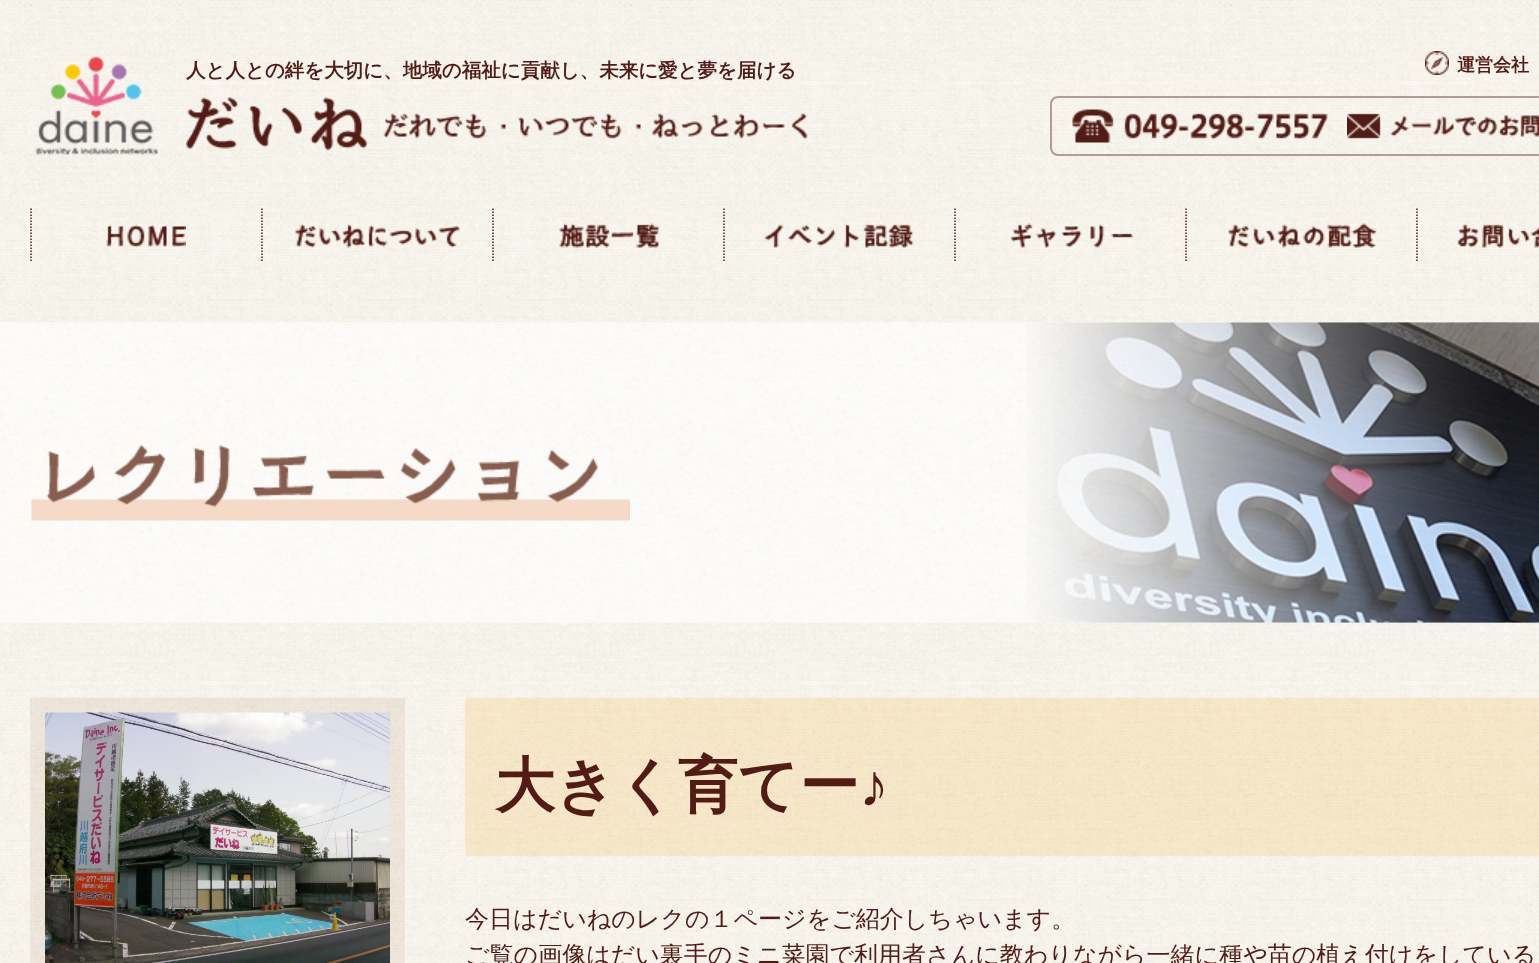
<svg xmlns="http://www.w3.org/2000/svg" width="1539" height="963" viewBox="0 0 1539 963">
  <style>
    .t1 { font: bold 19.5px WenQuanYi Zen Hei; fill: #521b15; }
    .t2 { font: bold 18px WenQuanYi Zen Hei; fill: #521b15; }
    .t3 { font: bold 60px WenQuanYi Zen Hei; fill: #521b15; }
    .t4 { font: bold 60px Liberation Sans; fill: #521b15; }
    .t5 { font: 500 24px WenQuanYi Zen Hei; fill: #521b15; }
  </style>
  <rect width="100%" height="100%" fill="#fff"/>
  <image x="0" y="0" width="1539" height="963" href="images/1.png"/>
  <image x="35" y="56" width="123" height="99" href="images/2.png"/>
  <text x="186" y="77" class="t1">人と人との絆を大切に、地域の福祉に貢献し、未来に愛と夢を届ける</text>
  <image x="186" y="97" width="622" height="54" href="images/3.png"/>
  <image x="1425" y="51" width="24" height="24" href="images/4.png"/>
  <text x="1457" y="71" class="t2">運営会社</text>
  <rect x="1051" y="97" width="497" height="58" rx="7" fill="none" stroke="#b49b95" stroke-width="2"/>
  <image x="1072" y="109" width="256" height="34" href="images/5.png"/>
  <image x="1347" y="113" width="192" height="26" href="images/6.png"/>
  <path d="M31 208.5V262.5" fill="none" stroke="#521b15" stroke-width="1.5" stroke-dasharray="1.5 1.5"/>
  <image x="106" y="224" width="80" height="23" href="images/7.png"/>
  <path d="M262 208.5V262.5" fill="none" stroke="#521b15" stroke-width="1.5" stroke-dasharray="1.5 1.5"/>
  <image x="295" y="224" width="166" height="24" href="images/8.png"/>
  <path d="M493 208.5V262.5" fill="none" stroke="#521b15" stroke-width="1.5" stroke-dasharray="1.5 1.5"/>
  <image x="559" y="223" width="100" height="25" href="images/9.png"/>
  <path d="M724 208.5V262.5" fill="none" stroke="#521b15" stroke-width="1.5" stroke-dasharray="1.5 1.5"/>
  <image x="764" y="224" width="150" height="24" href="images/10.png"/>
  <path d="M955 208.5V262.5" fill="none" stroke="#521b15" stroke-width="1.5" stroke-dasharray="1.5 1.5"/>
  <image x="1010" y="223" width="123" height="25" href="images/11.png"/>
  <path d="M1186 208.5V262.5" fill="none" stroke="#521b15" stroke-width="1.5" stroke-dasharray="1.5 1.5"/>
  <image x="1228" y="223" width="149" height="25" href="images/12.png"/>
  <path d="M1417 208.5V262.5" fill="none" stroke="#521b15" stroke-width="1.5" stroke-dasharray="1.5 1.5"/>
  <image x="1457" y="224" width="82" height="24" href="images/13.png"/>
  <image x="0" y="322" width="1539" height="301" href="images/14.png"/>
  <image x="0" y="322" width="1539" height="301" href="images/15.png"/>
  <image x="31" y="445" width="599" height="76" href="images/16.png"/>
  <image x="30" y="697" width="375" height="266" href="images/17.png"/>
  <image x="45" y="712" width="345" height="251" href="images/18.png"/>
  <image x="465" y="697" width="1074" height="160" href="images/19.png"/>
  <text x="495" y="806" class="t3">大きく育てー</text>
  <text x="859" y="806" class="t4">♪</text>
  <text x="465" y="927" class="t5">今日はだいねのレクの１ページをご紹介しちゃいます。</text>
  <text x="465" y="963" class="t5">ご覧の画像はだい裏手のミニ菜園で利用者さんに教わりながら一緒に種や苗の植え付けをしている</text>
</svg>
